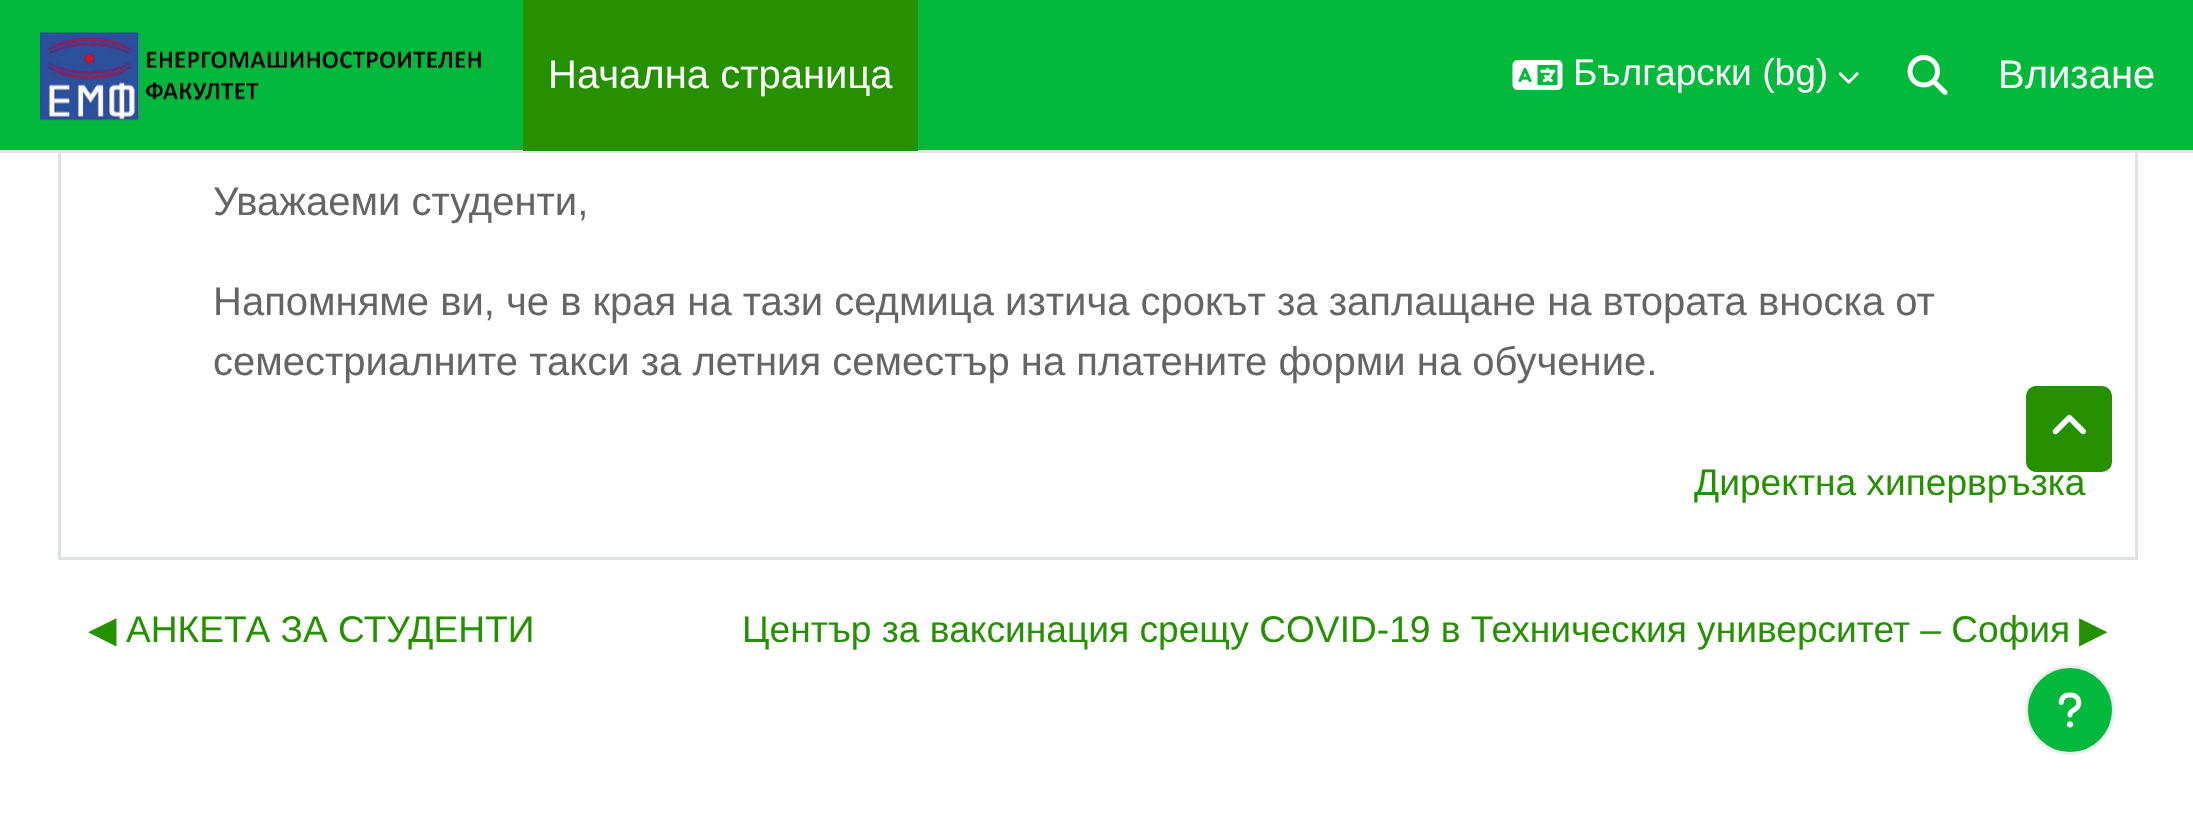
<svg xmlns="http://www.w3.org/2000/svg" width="2193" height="835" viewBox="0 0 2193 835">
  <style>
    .t1 { font: 40px Liberation Sans; fill: #fff; }
    .t2 { font: 37.15px Liberation Sans; fill: #fff; }
    .t3 { font: 40px Liberation Sans; fill: #656565; }
    .t4 { font: 37.15px Liberation Sans; fill: #259100; }
    .t5 { font: 37.15px DejaVu Sans; fill: #259100; }
  </style>
  <rect width="100%" height="100%" fill="#fff"/>
  <rect x="59.5" y="-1.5" width="2077" height="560" fill="none" stroke="#dee2e6" stroke-width="3"/>
  <rect x="0" y="0" width="2193" height="150" fill="#03b93b"/>
  <rect x="0" y="150" width="2193" height="3" fill="#e8e3e3"/>
  <image x="40" y="32" width="441" height="89" href="images/1.png"/>
  <rect x="523" y="0" width="395" height="151" fill="#259100"/>
  <text x="548" y="88" class="t1">Начална страница</text>
  <image x="1512" y="60" width="51" height="30" href="images/2.png"/>
  <text x="1573" y="85" class="t2">Български (bg)</text>
  <image x="1838" y="72" width="21" height="12" href="images/3.png"/>
  <image x="1907" y="55" width="41" height="40" href="images/4.png"/>
  <text x="1998" y="88" class="t1">Влизане</text>
  <text x="213" y="215" class="t3">Уважаеми студенти,</text>
  <text x="213" y="315" class="t3">Напомняме ви, че в края на тази седмица изтича срокът за заплащане на втората вноска от</text>
  <text x="213" y="375" class="t3">семестриалните такси за летния семестър на платените форми на обучение.</text>
  <text x="1694" y="495" class="t4">Директна хипервръзка</text>
  <text x="88" y="642" class="t5">◀︎</text>
  <text x="126" y="642" class="t4">АНКЕТА ЗА СТУДЕНТИ</text>
  <text x="742" y="642" class="t4">Център за ваксинация срещу COVID-19 в Техническия университет – София</text>
  <text x="2079" y="642" class="t5">▶︎</text>
  <rect x="2024.5" y="384.5" width="89" height="89" rx="11.5" fill="#259100" stroke="#fff" stroke-width="3"/>
  <image x="2052" y="414" width="34" height="21" href="images/5.png"/>
  <circle cx="2070" cy="710" r="43.5" fill="#03b93b" stroke="#eee" stroke-width="3"/>
  <image x="2058" y="692" width="24" height="36" href="images/6.png"/>
</svg>
